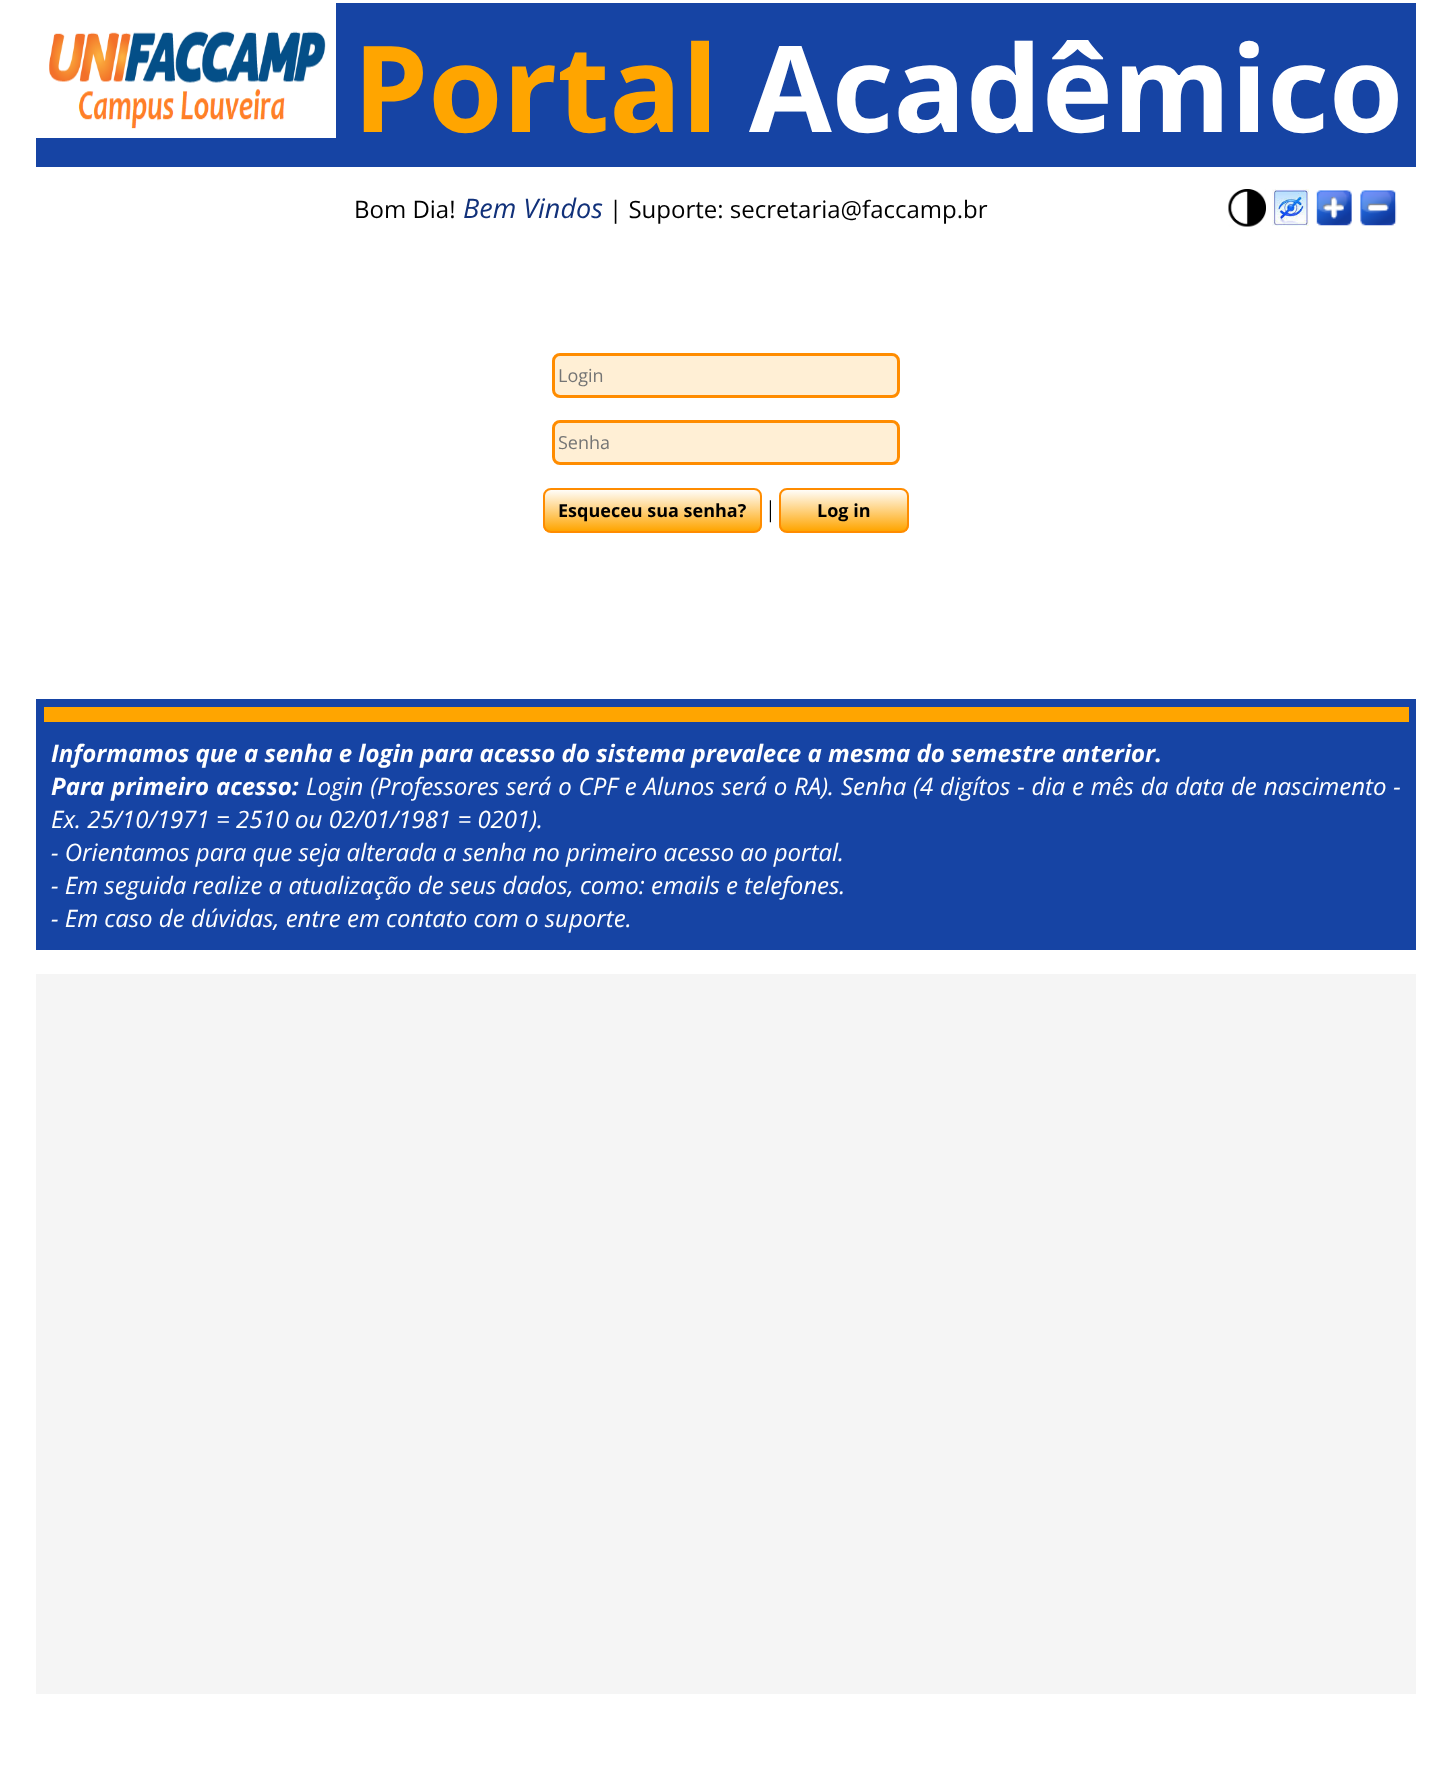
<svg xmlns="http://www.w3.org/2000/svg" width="1451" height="1779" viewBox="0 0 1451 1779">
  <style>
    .t1 { font: bold 120px Open Sans; fill: #ffa500; }
    .t2 { font: bold 120px Open Sans; fill: #fff; }
    .t3 { font: 24px Open Sans; fill: #000; }
    .t4 { font: italic 27px Open Sans; fill: #11317a; }
    .t5 { font: 18px Open Sans; fill: #757575; }
    .t6 { font: bold 18px Open Sans; fill: #000; }
    .t7 { font: 24px Liberation Serif; fill: #000; }
    .t8 { font: italic bold 24px Open Sans; fill: #fff; }
    .t9 { font: italic 24px Open Sans; fill: #fff; }
  </style>
  <defs>
    <clipPath id="clip1"><rect x="543" y="488" width="219" height="45" rx="8"/></clipPath>
    <linearGradient id="g1" gradientUnits="userSpaceOnUse" x1="545" y1="489" x2="545" y2="531"><stop offset="0" stop-color="#fff"/><stop offset="1" stop-color="#ffa500"/></linearGradient>
    <clipPath id="clip2"><rect x="779" y="488" width="130" height="45" rx="8"/></clipPath>
    <linearGradient id="g2" gradientUnits="userSpaceOnUse" x1="780" y1="489" x2="780" y2="531"><stop offset="0" stop-color="#fff"/><stop offset="1" stop-color="#ffa500"/></linearGradient>
  </defs>
  <rect width="100%" height="100%" fill="#fff"/>
  <rect x="36" y="3" width="1380" height="164" fill="#1644a4"/>
  <image x="36" y="3" width="300" height="135" href="images/1.png"/>
  <text x="353" y="132" class="t1">Portal</text>
  <text x="749" y="132" class="t2">Acadêmico</text>
  <text x="354" y="218" class="t3">Bom Dia!</text>
  <text x="463" y="218" class="t4">Bem Vindos</text>
  <text x="609" y="218" class="t3">| Suporte: secretaria@faccamp.br</text>
  <image x="1228" y="189" width="38" height="38" href="images/2.png"/>
  <image x="1272" y="189" width="37" height="37" href="images/3.png"/>
  <image x="1316" y="190" width="36" height="36" href="images/4.png"/>
  <image x="1360" y="190" width="37" height="36" href="images/5.png"/>
  <rect x="553.5" y="354.5" width="345" height="42" rx="6.5" fill="#ffefd5" stroke="#ff8c00" stroke-width="3"/>
  <text x="558" y="382" class="t5">Login</text>
  <rect x="553.5" y="421.5" width="345" height="42" rx="6.5" fill="#ffefd5" stroke="#ff8c00" stroke-width="3"/>
  <text x="558" y="449" class="t5">Senha</text>
  <g clip-path="url(#clip1)">
    <rect x="543" y="489" width="219" height="42" fill="url(#g1)"/>
  </g>
  <rect x="544" y="489" width="217" height="43" rx="7" fill="none" stroke="#ff8c00" stroke-width="2"/>
  <text x="558" y="517" class="t6">Esqueceu sua senha?</text>
  <text x="768" y="517" class="t7">|</text>
  <g clip-path="url(#clip2)">
    <rect x="779" y="489" width="130" height="42" fill="url(#g2)"/>
  </g>
  <rect x="780" y="489" width="128" height="43" rx="7" fill="none" stroke="#ff8c00" stroke-width="2"/>
  <text x="817" y="517" class="t6">Log in</text>
  <rect x="36" y="699" width="1380" height="251" fill="#1644a4"/>
  <rect x="44" y="707" width="1365" height="15" fill="#ffa500"/>
  <text x="51" y="762" class="t8">Informamos que a senha e login para acesso do sistema prevalece a mesma do semestre anterior.</text>
  <text x="51" y="795" word-spacing="0.65" class="t8">Para primeiro acesso:</text>
  <text x="306" y="795" word-spacing="0.65" class="t9">Login (Professores será o CPF e Alunos será o RA). Senha (4 digítos - dia e mês da data de nascimento -</text>
  <text x="51" y="828" class="t9">Ex. 25/10/1971 = 2510 ou 02/01/1981 = 0201).</text>
  <text x="51" y="861" class="t9">- Orientamos para que seja alterada a senha no primeiro acesso ao portal.</text>
  <text x="51" y="894" class="t9">- Em seguida realize a atualização de seus dados, como: emails e telefones.</text>
  <text x="51" y="927" class="t9">- Em caso de dúvidas, entre em contato com o suporte.</text>
  <rect x="36" y="974" width="1380" height="720" fill="#f5f5f5"/>
</svg>
